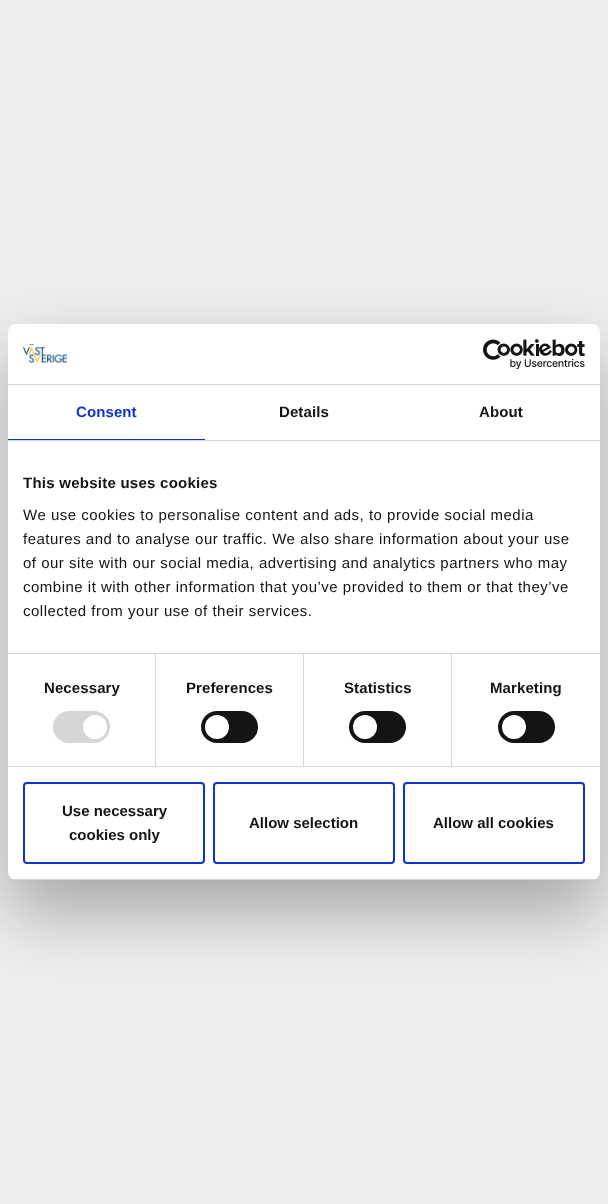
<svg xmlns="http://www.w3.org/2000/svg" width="608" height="1204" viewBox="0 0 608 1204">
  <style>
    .t1 { font: bold 15px Liberation Sans; letter-spacing: 0.1px; fill: #1032cf; }
    .t2 { font: bold 15px Liberation Sans; letter-spacing: 0.1px; fill: #141414; }
    .t3 { font: bold 15px Liberation Sans; letter-spacing: 0.25px; fill: #141414; }
    .t4 { font: 15px Liberation Sans; letter-spacing: 0.5px; fill: #141414; }
    .t5 { font: bold 15px Liberation Sans; fill: #141414; }
  </style>
  <defs>
    <clipPath id="clip1"><rect x="8" y="324" width="592" height="556" rx="8"/></clipPath>
  </defs>
  <rect width="100%" height="100%" fill="#eee"/>
  <rect x="8" y="356" width="592" height="556" rx="8" fill="#0000004d" filter="blur(34px)"/>
  <rect x="8" y="324" width="592" height="556" rx="8" fill="#fff"/>
  <rect x="8" y="384" width="592" height="1" fill="#d6d6d6"/>
  <image x="23" y="344" width="44" height="20" href="images/1.png"/>
  <image x="483" y="339" width="102" height="30" href="images/2.png"/>
  <rect x="8" y="440" width="592" height="1" fill="#d6d6d6"/>
  <rect x="8" y="439" width="197" height="1" fill="#1032cf"/>
  <text x="76" y="417" class="t1">Consent</text>
  <text x="279" y="417" class="t2">Details</text>
  <text x="479" y="417" class="t2">About</text>
  <rect x="8" y="653" width="592" height="1" fill="#d6d6d6"/>
  <text x="23" y="488" class="t3">This website uses cookies</text>
  <text x="23" y="520" class="t4">We use cookies to personalise content and ads, to provide social media</text>
  <text x="23" y="544" class="t4">features and to analyse our traffic. We also share information about your use</text>
  <text x="23" y="568" class="t4">of our site with our social media, advertising and analytics partners who may</text>
  <text x="23" y="592" class="t4">combine it with other information that you’ve provided to them or that they’ve</text>
  <text x="23" y="616" class="t4">collected from your use of their services.</text>
  <rect x="8" y="766" width="592" height="1" fill="#d6d6d6"/>
  <rect x="155" y="654" width="1" height="112" fill="#d6d6d6"/>
  <text x="44" y="693" class="t2">Necessary</text>
  <rect x="53" y="711" width="57" height="32" rx="16" fill="#d6d6d6"/>
  <circle cx="95" cy="727" r="12" fill="#fff"/>
  <rect x="303" y="654" width="1" height="112" fill="#d6d6d6"/>
  <text x="186" y="693" class="t2">Preferences</text>
  <rect x="201" y="711" width="57" height="32" rx="16" fill="#141414"/>
  <circle cx="217" cy="727" r="12" fill="#fff"/>
  <rect x="451" y="654" width="1" height="112" fill="#d6d6d6"/>
  <text x="344" y="693" class="t2">Statistics</text>
  <rect x="349" y="711" width="57" height="32" rx="16" fill="#141414"/>
  <circle cx="365" cy="727" r="12" fill="#fff"/>
  <text x="490" y="693" class="t2">Marketing</text>
  <rect x="498" y="711" width="57" height="32" rx="16" fill="#141414"/>
  <circle cx="514" cy="727" r="12" fill="#fff"/>
  <g clip-path="url(#clip1)">
    <rect x="8" y="879" width="592" height="1" fill="#d6d6d6"/>
  </g>
  <rect x="24" y="783" width="180" height="80" rx="3" fill="none" stroke="#1032cf" stroke-width="2"/>
  <text x="62" y="816" class="t5">Use necessary</text>
  <text x="69" y="840" class="t5">cookies only</text>
  <rect x="214" y="783" width="180" height="80" rx="3" fill="none" stroke="#1032cf" stroke-width="2"/>
  <text x="249" y="828" class="t5">Allow selection</text>
  <rect x="404" y="783" width="180" height="80" rx="3" fill="none" stroke="#1032cf" stroke-width="2"/>
  <text x="433" y="828" class="t5">Allow all cookies</text>
</svg>
